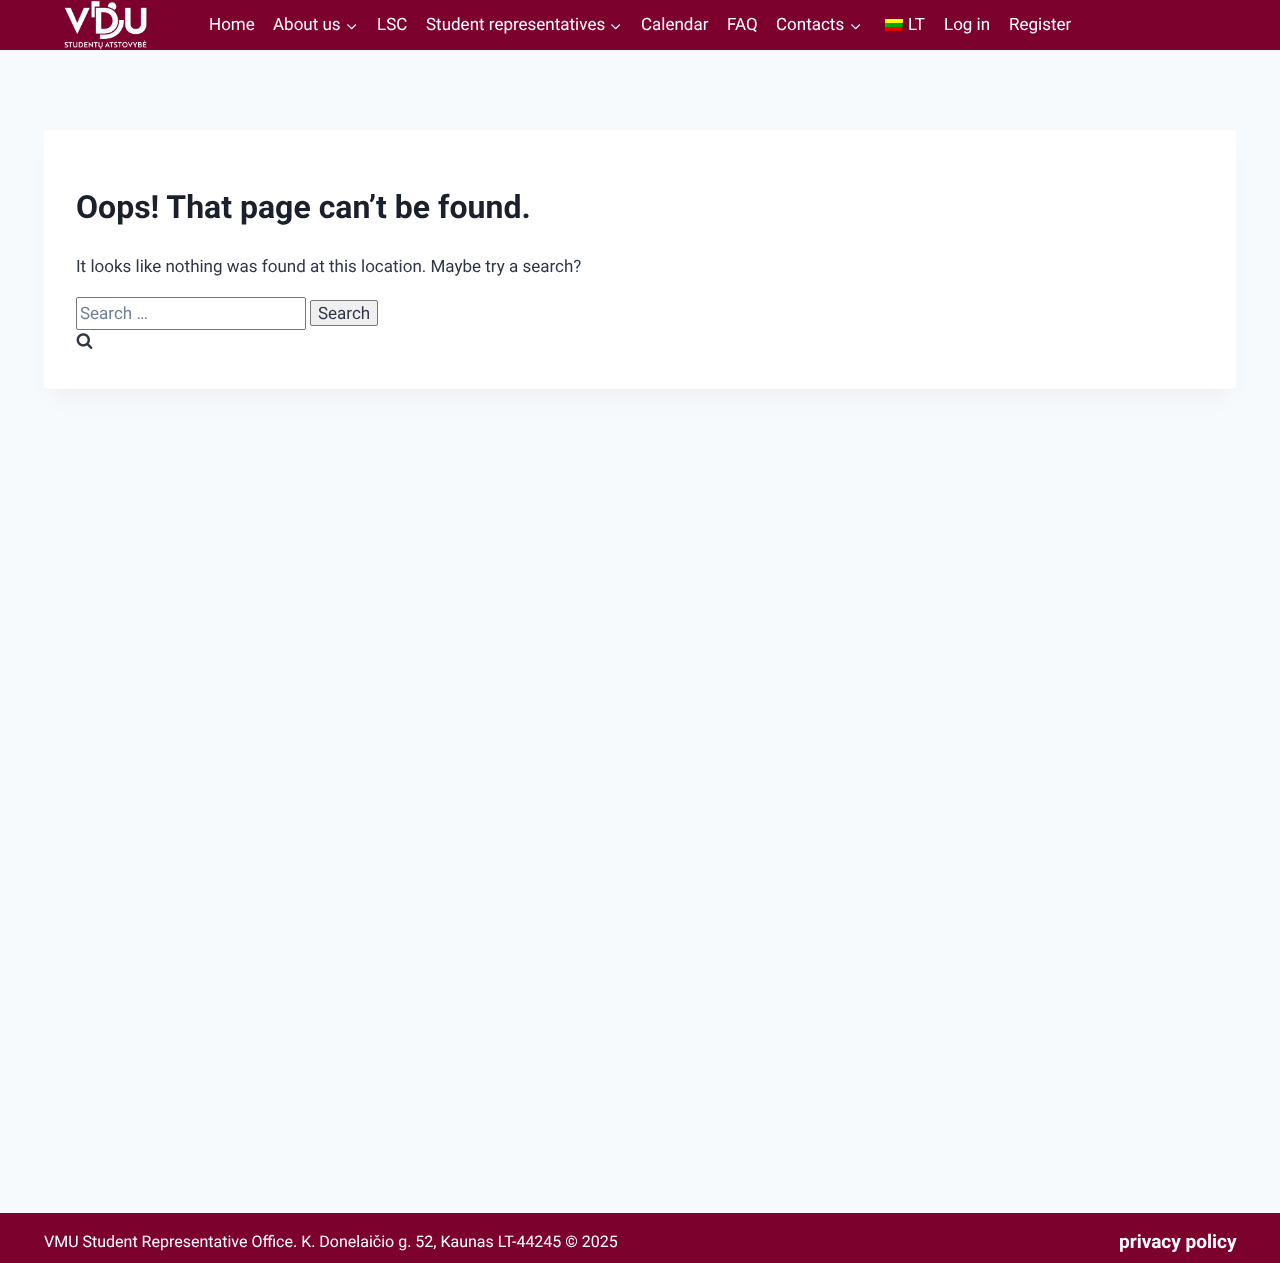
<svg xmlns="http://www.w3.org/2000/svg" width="1280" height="1263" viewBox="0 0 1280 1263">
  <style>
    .t1 { font: 17px Roboto; fill: #fff; }
    .t2 { font: bold 32px Roboto; fill: #1a202c; }
    .t3 { font: 17px Roboto; fill: #2d3748; }
    .t4 { font: 17px Roboto; fill: #718096; }
    .t5 { font: 16px Roboto; fill: #fff; }
    .t6 { font: bold 19px Roboto; fill: #fff; }
  </style>
  <rect width="100%" height="100%" fill="#f7fafc"/>
  <rect x="0" y="0" width="1280" height="50" fill="#7c012c"/>
  <image x="64" y="0" width="83" height="50" href="images/1.png"/>
  <text x="209" y="30" class="t1">Home</text>
  <text x="273" y="30" class="t1">About us</text>
  <image x="347" y="24" width="10" height="6" href="images/2.png"/>
  <text x="377" y="30" class="t1">LSC</text>
  <text x="426" y="30" class="t1">Student representatives</text>
  <image x="611" y="24" width="10" height="6" href="images/2.png"/>
  <text x="641" y="30" class="t1">Calendar</text>
  <text x="727" y="30" class="t1">FAQ</text>
  <text x="776" y="30" class="t1">Contacts</text>
  <image x="851" y="24" width="10" height="6" href="images/2.png"/>
  <image x="885" y="19" width="18" height="12" href="images/3.png"/>
  <text x="908" y="30" class="t1">LT</text>
  <text x="944" y="30" class="t1">Log in</text>
  <text x="1009" y="30" class="t1">Register</text>
  <rect x="54" y="155" width="1172" height="239" fill="#0000000d" filter="blur(12.5px)"/>
  <rect x="44" y="130" width="1192" height="259" rx="4" fill="#fff"/>
  <text x="76" y="218" class="t2">Oops! That page can’t be found.</text>
  <text x="76" y="272" class="t3">It looks like nothing was found at this location. Maybe try a search?</text>
  <rect x="76.5" y="297.5" width="229" height="32" rx="1.5" fill="none" stroke="#767676"/>
  <text x="80" y="319" class="t4">Search …</text>
  <rect x="310.5" y="300.5" width="67" height="25" rx="1.5" fill="#efefef" stroke="#767676"/>
  <text x="318" y="319" class="t3">Search</text>
  <image x="76" y="333" width="17" height="16" href="images/4.png"/>
  <rect x="0" y="1213" width="1280" height="50" fill="#7c012c"/>
  <text x="44" y="1247" class="t5">VMU Student Representative Office. K. Donelaičio g. 52, Kaunas LT-44245 © 2025</text>
  <text x="1119" y="1248" class="t6">privacy policy</text>
</svg>
